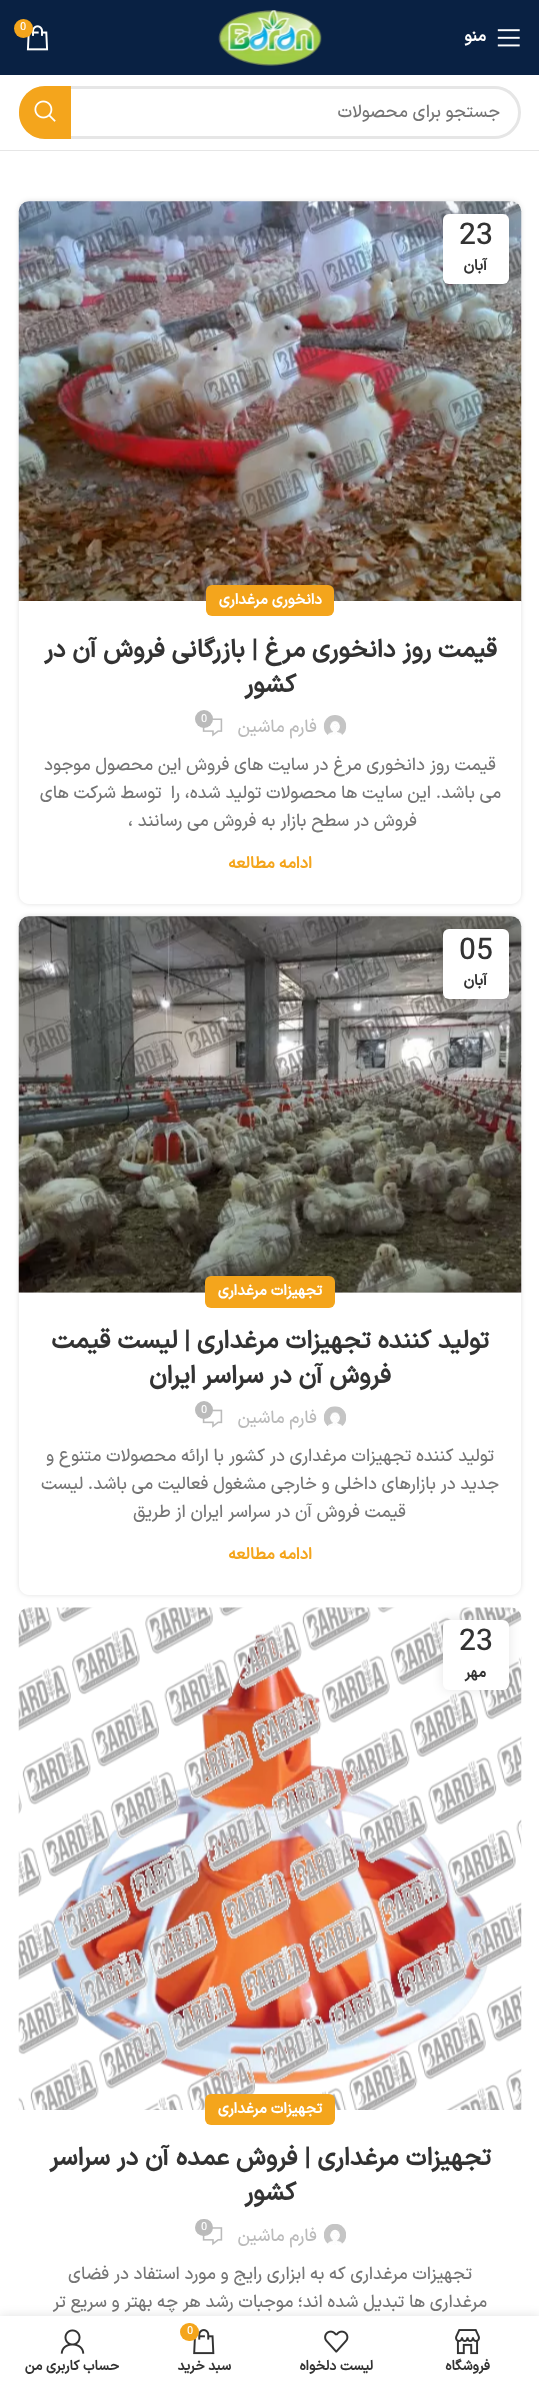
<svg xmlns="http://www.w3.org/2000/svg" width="539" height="2385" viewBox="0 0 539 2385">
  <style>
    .t1 { font: 500 11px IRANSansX; fill: #fff; }
    .t2 { font: bold 16.25px IRANSansX; direction: rtl; fill: #fff; }
    .t3 { font: 500 17.5px IRANSansX; direction: rtl; fill: #767676; }
    .t4 { font: 500 30px IRANSansX; fill: #333; }
    .t5 { font: bold 15px IRANSansX; direction: rtl; fill: #333; }
    .t6 { font: bold 15px IRANSansX; direction: rtl; fill: #fff; }
    .t7 { font: bold 25px IRANSansX; direction: rtl; fill: #333; }
    .t8 { font: 500 17.5px IRANSansX; direction: rtl; fill: #bbb; }
    .t9 { font: bold 16.25px IRANSansX; direction: rtl; fill: #f4a51c; }
    .t10 { font: bold 13.75px IRANSansX; direction: rtl; fill: #333; }
  </style>
  <rect width="100%" height="100%" fill="#fff"/>
  <rect x="0" y="0" width="539" height="75" fill="#092143"/>
  <image x="218" y="10" width="104" height="56" href="images/1.png"/>
  <image x="26" y="25" width="23" height="26" href="images/2.png"/>
  <circle cx="23.5" cy="28.5" r="9.5" fill="#f4a51c"/>
  <text x="20" y="30" class="t1">0</text>
  <image x="497" y="29" width="23" height="18" href="images/3.png"/>
  <text x="486" y="41" class="t2">منو</text>
  <rect x="0" y="150" width="539" height="1" fill="#e6e6e6"/>
  <rect x="20.5" y="87.5" width="499" height="50" rx="25" fill="none" stroke="#e6e6e6" stroke-width="3"/>
  <text x="500" y="117" class="t3">جستجو برای محصولات</text>
  <path d="M45 86H71V139H45C30.5 139 19 127.5 19 113V112C19 97.5 30.5 86 45 86Z" fill="#f4a51c"/>
  <image x="34" y="100" width="22" height="22" href="images/4.png"/>
  <rect x="19" y="201" width="502" height="703" rx="10" fill="#0000001f" filter="blur(2.5px)"/>
  <image x="18" y="201" width="504" height="401" href="images/5.png"/>
  <rect x="443" y="214" width="66" height="70" rx="6" fill="#0000001a" filter="blur(5.5px)"/>
  <rect x="443" y="214" width="66" height="70" rx="6" fill="#fff"/>
  <text x="459" y="244" class="t4">23</text>
  <text x="487" y="270" class="t5">آبان</text>
  <path d="M19 601H521V894C521 899.5 516.5 904 511 904H29C23.5 904 19 899.5 19 894Z" fill="#fff"/>
  <rect x="206" y="585" width="128" height="31" rx="6" fill="#f4a51c"/>
  <text x="322" y="604" class="t6">دانخوری مرغداری</text>
  <text x="497" y="657" class="t7">قیمت روز دانخوری مرغ | بازرگانی فروش آن در</text>
  <text x="296" y="692" class="t7">کشور</text>
  <image x="323" y="715" width="24" height="20" href="images/6.png"/>
  <text x="317" y="732" class="t8">فارم ماشین</text>
  <image x="202" y="718" width="21" height="19" href="images/7.png"/>
  <circle cx="204" cy="719" r="9" fill="#bbb"/>
  <text x="201" y="722" class="t1">0</text>
  <text x="496" y="770" class="t3">قیمت روز دانخوری مرغ در سایت های فروش این محصول موجود</text>
  <text x="501" y="798" class="t3" xml:space="preserve">می باشد. این سایت ها محصولات تولید شده، را  توسط شرکت های</text>
  <text x="417" y="826" class="t3">فروش در سطح بازار به فروش می رسانند ،</text>
  <text x="312" y="868" class="t9">ادامه مطالعه</text>
  <rect x="19" y="916" width="502" height="679" rx="10" fill="#0000001f" filter="blur(2.5px)"/>
  <image x="18" y="916" width="504" height="377" href="images/8.png"/>
  <rect x="443" y="929" width="66" height="70" rx="6" fill="#0000001a" filter="blur(5.5px)"/>
  <rect x="443" y="929" width="66" height="70" rx="6" fill="#fff"/>
  <text x="459" y="959" class="t4">05</text>
  <text x="487" y="985" class="t5">آبان</text>
  <path d="M19 1293H521V1585C521 1590.5 516.5 1595 511 1595H29C23.5 1595 19 1590.5 19 1585Z" fill="#fff"/>
  <rect x="205" y="1276" width="130" height="32" rx="6" fill="#f4a51c"/>
  <text x="322" y="1295" class="t6">تجهیزات مرغداری</text>
  <text x="489" y="1348" class="t7">تولید کننده تجهیزات مرغداری | لیست قیمت</text>
  <text x="391" y="1383" class="t7">فروش آن در سراسر ایران</text>
  <image x="324" y="1406" width="22" height="20" href="images/9.png"/>
  <text x="317" y="1423" class="t8">فارم ماشین</text>
  <image x="202" y="1409" width="21" height="19" href="images/10.png"/>
  <circle cx="204" cy="1410" r="9" fill="#bbb"/>
  <text x="201" y="1413" class="t1">0</text>
  <text x="494" y="1461" class="t3">تولید کننده تجهیزات مرغداری در کشور با ارائه محصولات متنوع و</text>
  <text x="499" y="1489" class="t3">جدید در بازارهای داخلی و خارجی مشغول فعالیت می باشد. لیست</text>
  <text x="406" y="1517" class="t3">قیمت فروش آن در سراسر ایران از طریق</text>
  <text x="312" y="1559" class="t9">ادامه مطالعه</text>
  <image x="18" y="1607" width="504" height="503" href="images/11.png"/>
  <rect x="443" y="1620" width="66" height="70" rx="6" fill="#0000001a" filter="blur(5.5px)"/>
  <rect x="443" y="1620" width="66" height="70" rx="6" fill="#fff"/>
  <text x="459" y="1650" class="t4">23</text>
  <text x="486" y="1677" class="t5">مهر</text>
  <rect x="205" y="2094" width="130" height="31" rx="6" fill="#f4a51c"/>
  <text x="322" y="2113" class="t6">تجهیزات مرغداری</text>
  <text x="491" y="2165" class="t7">تجهیزات مرغداری | فروش عمده آن در سراسر</text>
  <text x="296" y="2200" class="t7">کشور</text>
  <image x="202" y="2227" width="21" height="19" href="images/12.png"/>
  <rect x="195" y="2219" width="18" height="17" rx="8.5" fill="#bbb"/>
  <text x="201" y="2230" class="t1">0</text>
  <image x="324" y="2224" width="22" height="21" href="images/13.png"/>
  <text x="317" y="2241" class="t8">فارم ماشین</text>
  <text x="472" y="2279" class="t3">تجهیزات مرغداری که به ابزاری رایج و مورد استفاد در فضای</text>
  <text x="487" y="2307" class="t3">مرغداری ها تبدیل شده اند؛ موجبات رشد هر چه بهتر و سریع تر</text>
  <rect x="0" y="2316" width="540" height="69" fill="#0000001f" filter="blur(5.5px)"/>
  <rect x="0" y="2316" width="539" height="69" fill="#fff"/>
  <image x="455" y="2329" width="25" height="26" href="images/14.png"/>
  <text x="490" y="2370" class="t10">فروشگاه</text>
  <image x="324" y="2330" width="25" height="23" href="images/15.png"/>
  <text x="373" y="2370" class="t10">لیست دلخواه</text>
  <image x="193" y="2329" width="22" height="26" href="images/16.png"/>
  <rect x="180" y="2323" width="19" height="18" rx="9" fill="#f4a51c"/>
  <text x="187" y="2334" class="t1">0</text>
  <text x="231" y="2370" class="t10">سبد خرید</text>
  <image x="60" y="2329" width="25" height="25" href="images/17.png"/>
  <text x="119" y="2370" class="t10">حساب کاربری من</text>
</svg>
